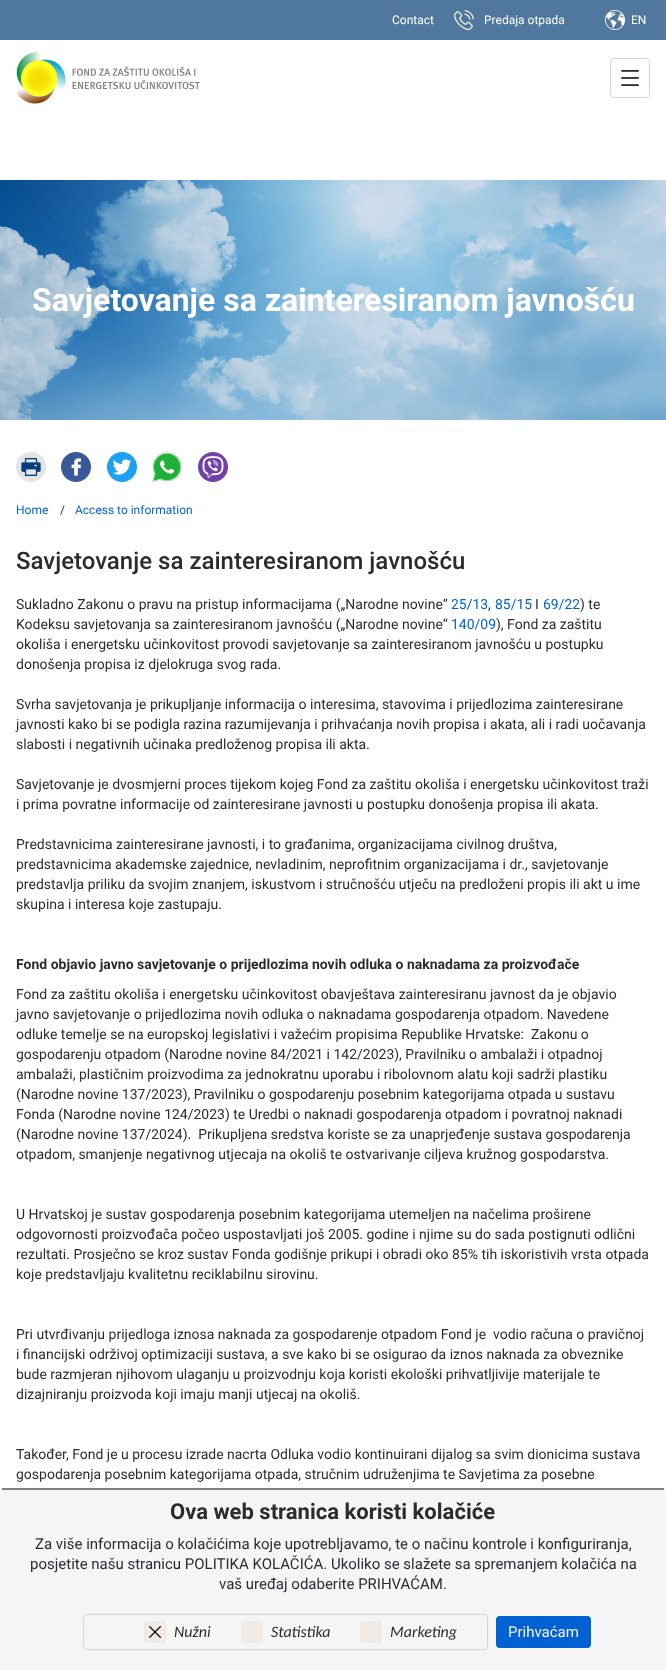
<svg xmlns="http://www.w3.org/2000/svg" width="666" height="1670" viewBox="0 0 666 1670">
  <style>
    .t1 { font: 12px Roboto; fill: #fff; }
    .t2 { font: bold 32px Roboto; fill: #fff; }
    .t3 { font: 12px Roboto; fill: #0062d2; }
    .t4 { font: 12px Roboto; fill: #2a2d30; }
    .t5 { font: 500 24px Roboto; fill: #2a2d30; }
    .t6 { font: 14px Roboto; fill: #2a2d30; }
    .t7 { font: 14px Roboto; fill: #0062d2; }
    .t8 { font: bold 14px Roboto; fill: #2a2d30; }
    .t9 { font: bold 22px Roboto; fill: #2a2d30; }
    .t10 { font: 15px Roboto; fill: #2a2d30; }
    .t11 { font: italic 16px Carlito; fill: #2a2d30; }
    .t12 { font: 15px Roboto; fill: #f5f5f5; }
  </style>
  <rect width="100%" height="100%" fill="#fff"/>
  <rect x="0" y="0" width="666" height="40" fill="#50779e"/>
  <text x="392" y="24" class="t1">Contact</text>
  <image x="454" y="10" width="20" height="20" href="images/1.png"/>
  <text x="484" y="24" class="t1">Predaja otpada</text>
  <image x="605" y="10" width="20" height="20" href="images/2.png"/>
  <text x="631" y="24" class="t1">EN</text>
  <image x="16" y="52" width="184" height="52" href="images/3.png"/>
  <image x="621" y="70" width="18" height="16" href="images/4.png"/>
  <rect x="610.5" y="58.5" width="39" height="39" rx="3.5" fill="none" stroke="#d5d5d5"/>
  <image x="0" y="180" width="666" height="240" href="images/5.png"/>
  <text x="32" y="311" class="t2">Savjetovanje sa zainteresiranom javnošću</text>
  <image x="16" y="452" width="30" height="30" href="images/6.png"/>
  <image x="61" y="452" width="30" height="30" href="images/7.png"/>
  <image x="107" y="452" width="30" height="30" href="images/8.png"/>
  <image x="152" y="452" width="30" height="30" href="images/9.png"/>
  <image x="198" y="452" width="30" height="30" href="images/10.png"/>
  <text x="16" y="514" class="t3">Home</text>
  <text x="60" y="514" class="t4">/</text>
  <text x="75" y="514" class="t3">Access to information</text>
  <text x="16" y="569" class="t5">Savjetovanje sa zainteresiranom javnošću</text>
  <text x="16" y="609" class="t6">Sukladno Zakonu o pravu na pristup informacijama („Narodne novine“</text>
  <text x="451" y="609" class="t7">25/13</text>
  <text x="488" y="609" class="t6">,</text>
  <text x="495" y="609" class="t7">85/15</text>
  <text x="535" y="609" class="t6">I</text>
  <text x="543" y="609" class="t7">69/22</text>
  <text x="580" y="609" class="t6">) te</text>
  <text x="16" y="629" class="t6">Kodeksu savjetovanja sa zainteresiranom javnošću („Narodne novine“</text>
  <text x="451" y="629" class="t7">140/09</text>
  <text x="496" y="629" class="t6">), Fond za zaštitu</text>
  <text x="16" y="649" class="t6">okoliša i energetsku učinkovitost provodi savjetovanje sa zainteresiranom javnošću u postupku</text>
  <text x="16" y="669" class="t6">donošenja propisa iz djelokruga svog rada.</text>
  <text x="16" y="709" class="t6">Svrha savjetovanja je prikupljanje informacija o interesima, stavovima i prijedlozima zainteresirane</text>
  <text x="16" y="729" class="t6">javnosti kako bi se podigla razina razumijevanja i prihvaćanja novih propisa i akata, ali i radi uočavanja</text>
  <text x="16" y="749" class="t6">slabosti i negativnih učinaka predloženog propisa ili akta.</text>
  <text x="16" y="789" class="t6">Savjetovanje je dvosmjerni proces tijekom kojeg Fond za zaštitu okoliša i energetsku učinkovitost traži</text>
  <text x="16" y="809" class="t6">i prima povratne informacije od zainteresirane javnosti u postupku donošenja propisa ili akata.</text>
  <text x="16" y="849" class="t6">Predstavnicima zainteresirane javnosti, i to građanima, organizacijama civilnog društva,</text>
  <text x="16" y="869" class="t6">predstavnicima akademske zajednice, nevladinim, neprofitnim organizacijama i dr., savjetovanje</text>
  <text x="16" y="889" class="t6">predstavlja priliku da svojim znanjem, iskustvom i stručnošću utječu na predloženi propis ili akt u ime</text>
  <text x="16" y="909" class="t6">skupina i interesa koje zastupaju.</text>
  <text x="16" y="969" class="t8">Fond objavio javno savjetovanje o prijedlozima novih odluka o naknadama za proizvođače</text>
  <text x="16" y="999" class="t6">Fond za zaštitu okoliša i energetsku učinkovitost obavještava zainteresiranu javnost da je objavio</text>
  <text x="16" y="1019" class="t6">javno savjetovanje o prijedlozima novih odluka o naknadama gospodarenja otpadom. Navedene</text>
  <text x="16" y="1039" class="t6" xml:space="preserve">odluke temelje se na europskoj legislativi i važećim propisima Republike Hrvatske:  Zakonu o</text>
  <text x="16" y="1059" class="t6">gospodarenju otpadom (Narodne novine 84/2021 i 142/2023), Pravilniku o ambalaži i otpadnoj</text>
  <text x="16" y="1079" class="t6">ambalaži, plastičnim proizvodima za jednokratnu uporabu i ribolovnom alatu koji sadrži plastiku</text>
  <text x="16" y="1099" class="t6">(Narodne novine 137/2023), Pravilniku o gospodarenju posebnim kategorijama otpada u sustavu</text>
  <text x="16" y="1119" class="t6">Fonda (Narodne novine 124/2023) te Uredbi o naknadi gospodarenja otpadom i povratnoj naknadi</text>
  <text x="16" y="1139" class="t6" xml:space="preserve">(Narodne novine 137/2024).  Prikupljena sredstva koriste se za unaprjeđenje sustava gospodarenja</text>
  <text x="16" y="1159" class="t6">otpadom, smanjenje negativnog utjecaja na okoliš te ostvarivanje ciljeva kružnog gospodarstva.</text>
  <text x="16" y="1219" class="t6">U Hrvatskoj je sustav gospodarenja posebnim kategorijama utemeljen na načelima proširene</text>
  <text x="16" y="1239" class="t6">odgovornosti proizvođača počeo uspostavljati još 2005. godine i njime su do sada postignuti odlični</text>
  <text x="16" y="1259" class="t6">rezultati. Prosječno se kroz sustav Fonda godišnje prikupi i obradi oko 85% tih iskoristivih vrsta otpada</text>
  <text x="16" y="1279" class="t6">koje predstavljaju kvalitetnu reciklabilnu sirovinu.</text>
  <text x="16" y="1339" class="t6" xml:space="preserve">Pri utvrđivanju prijedloga iznosa naknada za gospodarenje otpadom Fond je  vodio računa o pravičnoj</text>
  <text x="16" y="1359" class="t6">i financijski održivoj optimizaciji sustava, a sve kako bi se osigurao da iznos naknada za obveznike</text>
  <text x="16" y="1379" class="t6">bude razmjeran njihovom ulaganju u proizvodnju koja koristi ekološki prihvatljivije materijale te</text>
  <text x="16" y="1399" class="t6">dizajniranju proizvoda koji imaju manji utjecaj na okoliš.</text>
  <text x="16" y="1459" class="t6">Također, Fond je u procesu izrade nacrta Odluka vodio kontinuirani dijalog sa svim dionicima sustava</text>
  <text x="16" y="1479" class="t6">gospodarenja posebnim kategorijama otpada, stručnim udruženjima te Savjetima za posebne</text>
  <path d="M4 1488H662C664 1488 666 1490 666 1492V1670H0V1492C0 1490 2 1488 4 1488Z" fill="#f5f5f5"/>
  <rect x="2" y="1488" width="662" height="2" fill="#808080"/>
  <text x="170" y="1519" class="t9">Ova web stranica koristi kolačiće</text>
  <text x="35" y="1549" class="t10">Za više informacija o kolačićima koje upotrebljavamo, te o načinu kontrole i konfiguriranja,</text>
  <text x="30" y="1569" class="t10">posjetite našu stranicu POLITIKA KOLAČIĆA. Ukoliko se slažete sa spremanjem kolačića na</text>
  <text x="219" y="1589" class="t10">vaš uređaj odaberite PRIHVAĆAM.</text>
  <rect x="83.5" y="1614.5" width="404" height="35" rx="3.5" fill="none" stroke="#d3d3d3"/>
  <rect x="144" y="1621" width="22" height="22" rx="2" fill="#f0ebe6"/>
  <image x="149" y="1626" width="12" height="12" href="images/11.png"/>
  <text x="174" y="1637" class="t11">Nužni</text>
  <rect x="241" y="1621" width="22" height="22" rx="2" fill="#f0ebe6"/>
  <text x="271" y="1637" class="t11">Statistika</text>
  <rect x="360" y="1621" width="22" height="22" rx="2" fill="#f0ebe6"/>
  <text x="390" y="1637" class="t11">Marketing</text>
  <rect x="496" y="1616" width="95" height="32" rx="4" fill="#0062d2"/>
  <text x="508" y="1637" class="t12">Prihvaćam</text>
</svg>
